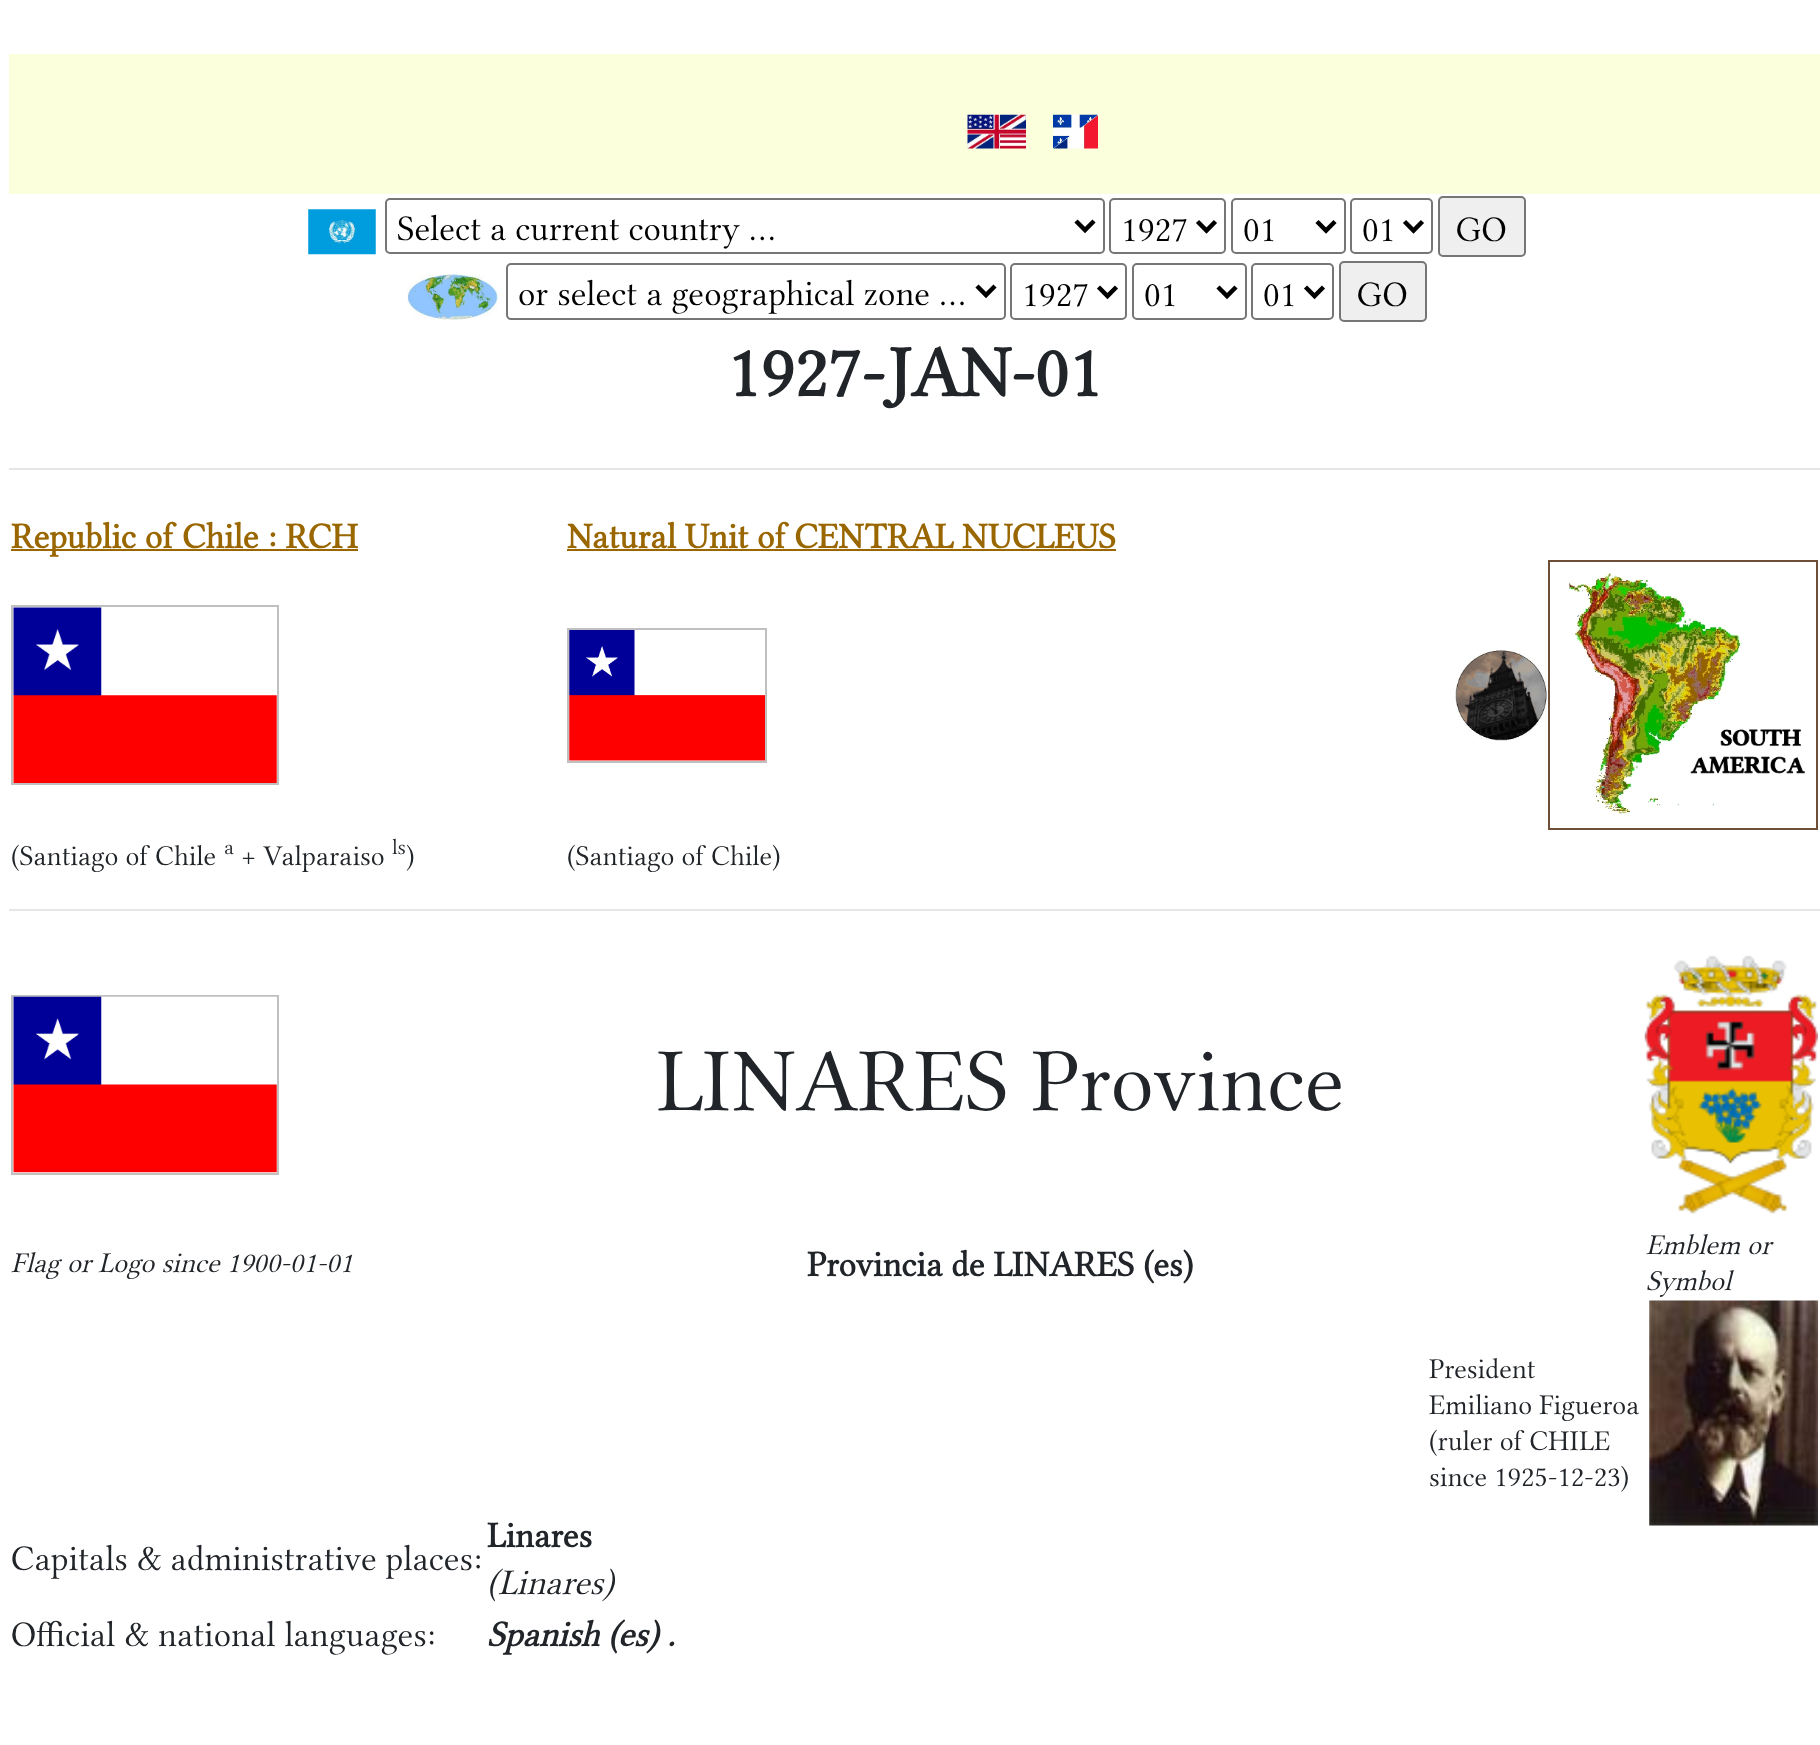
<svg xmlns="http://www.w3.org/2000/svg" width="1820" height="1745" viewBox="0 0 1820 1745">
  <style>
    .t1 { font: 36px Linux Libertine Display; fill: #000; }
    .t2 { font: bold 72px Linux Libertine Display; fill: #212529; }
    .t3 { font: bold 36px Linux Libertine Display; fill: #960; }
    .t4 { font: 28.75px Linux Libertine Display; fill: #212529; }
    .t5 { font: 22px Linux Libertine Display; fill: #212529; }
    .t6 { font: 90px Linux Libertine Display; fill: #212529; }
    .t7 { font: italic 28.75px Linux Libertine Display; fill: #212529; }
    .t8 { font: bold 36px Linux Libertine Display; fill: #212529; }
    .t9 { font: 36px Linux Libertine Display; fill: #212529; }
    .t10 { font: italic 36px Linux Libertine Display; fill: #212529; }
    .t11 { font: italic bold 36px Linux Libertine Display; fill: #212529; }
  </style>
  <rect width="100%" height="100%" fill="#fff"/>
  <rect x="9" y="54" width="1811" height="140" fill="#fbffdc"/>
  <image x="967" y="114" width="59" height="35" href="images/1.png"/>
  <image x="1053" y="114" width="45" height="35" href="images/2.png"/>
  <image x="308" y="209" width="68" height="46" href="images/3.png"/>
  <rect x="386" y="199" width="718" height="54" rx="4" fill="none" stroke="#767676" stroke-width="2"/>
  <path d="M1076 221L1085 230L1094 221" fill="none" stroke="#000" stroke-width="4.5"/>
  <text x="397" y="240" class="t1">Select a current country ...</text>
  <rect x="1110" y="199" width="115" height="54" rx="4" fill="none" stroke="#767676" stroke-width="2"/>
  <path d="M1197.5 221.5L1206.5 230.5L1215.5 221.5" fill="none" stroke="#000" stroke-width="4.5"/>
  <text x="1121" y="241" class="t1">1927</text>
  <rect x="1232" y="199" width="113" height="54" rx="4" fill="none" stroke="#767676" stroke-width="2"/>
  <path d="M1317 221.5L1326 230.5L1335 221.5" fill="none" stroke="#000" stroke-width="4.5"/>
  <text x="1243" y="241" class="t1">01</text>
  <rect x="1351" y="199" width="81" height="54" rx="4" fill="none" stroke="#767676" stroke-width="2"/>
  <path d="M1404.5 221.5L1413.5 230.5L1422.5 221.5" fill="none" stroke="#000" stroke-width="4.5"/>
  <text x="1362" y="241" class="t1">01</text>
  <rect x="1439" y="197" width="86" height="59" rx="4" fill="#efefef" stroke="#767676" stroke-width="2"/>
  <text x="1456" y="241" class="t1">GO</text>
  <image x="407" y="274" width="91" height="46" href="images/4.png"/>
  <rect x="507" y="264" width="498" height="55" rx="4" fill="none" stroke="#767676" stroke-width="2"/>
  <path d="M977 286L986 295L995 286" fill="none" stroke="#000" stroke-width="4.5"/>
  <text x="518" y="305" class="t1">or select a geographical zone ...</text>
  <rect x="1011" y="264" width="115" height="55" rx="4" fill="none" stroke="#767676" stroke-width="2"/>
  <path d="M1098.5 287L1107.5 296L1116.5 287" fill="none" stroke="#000" stroke-width="4.5"/>
  <text x="1022" y="306" class="t1">1927</text>
  <rect x="1133" y="264" width="113" height="55" rx="4" fill="none" stroke="#767676" stroke-width="2"/>
  <path d="M1218 287L1227 296L1236 287" fill="none" stroke="#000" stroke-width="4.5"/>
  <text x="1144" y="306" class="t1">01</text>
  <rect x="1252" y="264" width="81" height="55" rx="4" fill="none" stroke="#767676" stroke-width="2"/>
  <path d="M1305.5 287L1314.5 296L1323.5 287" fill="none" stroke="#000" stroke-width="4.5"/>
  <text x="1263" y="306" class="t1">01</text>
  <rect x="1340" y="262" width="86" height="59" rx="4" fill="#efefef" stroke="#767676" stroke-width="2"/>
  <text x="1357" y="306" class="t1">GO</text>
  <text x="727" y="396" class="t2">1927-JAN-01</text>
  <rect x="9" y="468" width="1811" height="2" fill="#e6e6e6"/>
  <rect x="11" y="549" width="347" height="2" fill="#960"/>
  <text x="11" y="548" class="t3">Republic of Chile : RCH</text>
  <text x="567" y="548" class="t3">Natural Unit of CENTRAL NUCLEUS</text>
  <rect x="567" y="549" width="549" height="2" fill="#960"/>
  <rect x="12" y="606" width="266" height="178" fill="none" stroke="#c0c0c0" stroke-width="2"/>
  <image x="13" y="607" width="264" height="176" href="images/5.png"/>
  <rect x="568" y="629" width="198" height="133" fill="none" stroke="#c0c0c0" stroke-width="2"/>
  <image x="569" y="630" width="196" height="131" href="images/6.png"/>
  <rect x="1549" y="561" width="268" height="268" fill="none" stroke="#6f4e37" stroke-width="2"/>
  <image x="1455" y="650" width="92" height="91" href="images/7.png"/>
  <image x="1569" y="572" width="236" height="242" href="images/8.png"/>
  <text x="11" y="865" class="t4">(Santiago of Chile</text>
  <text x="224" y="854" class="t5">a</text>
  <text x="241" y="865" class="t4">+ Valparaiso</text>
  <text x="392" y="854" class="t5">ls</text>
  <text x="406" y="865" class="t4">)</text>
  <text x="567" y="865" class="t4">(Santiago of Chile)</text>
  <rect x="9" y="909" width="1811" height="2" fill="#e6e6e6"/>
  <rect x="12" y="996" width="266" height="178" fill="none" stroke="#c0c0c0" stroke-width="2"/>
  <image x="13" y="996" width="264" height="177" href="images/9.png"/>
  <text x="657" y="1110" class="t6">LINARES Province</text>
  <image x="1644" y="955" width="174" height="259" href="images/10.png"/>
  <text x="11" y="1272" class="t7">Flag or Logo since 1900-01-01</text>
  <text x="807" y="1276" class="t8">Provincia de LINARES (es)</text>
  <text x="1646" y="1254" class="t7">Emblem or</text>
  <text x="1646" y="1290" class="t7">Symbol</text>
  <text x="1429" y="1378" class="t4">President</text>
  <image x="1649" y="1300" width="169" height="226" href="images/11.png"/>
  <text x="1429" y="1414" class="t4">Emiliano Figueroa</text>
  <text x="1429" y="1450" class="t4">(ruler of CHILE</text>
  <text x="1429" y="1486" class="t4">since 1925-12-23)</text>
  <text x="11" y="1570" class="t9">Capitals &amp; administrative places:</text>
  <text x="487" y="1547" class="t8">Linares</text>
  <text x="487" y="1594" class="t10">(Linares)</text>
  <text x="11" y="1646" class="t9">Official &amp; national languages:</text>
  <text x="487" y="1646" class="t11">Spanish (es) .</text>
</svg>
